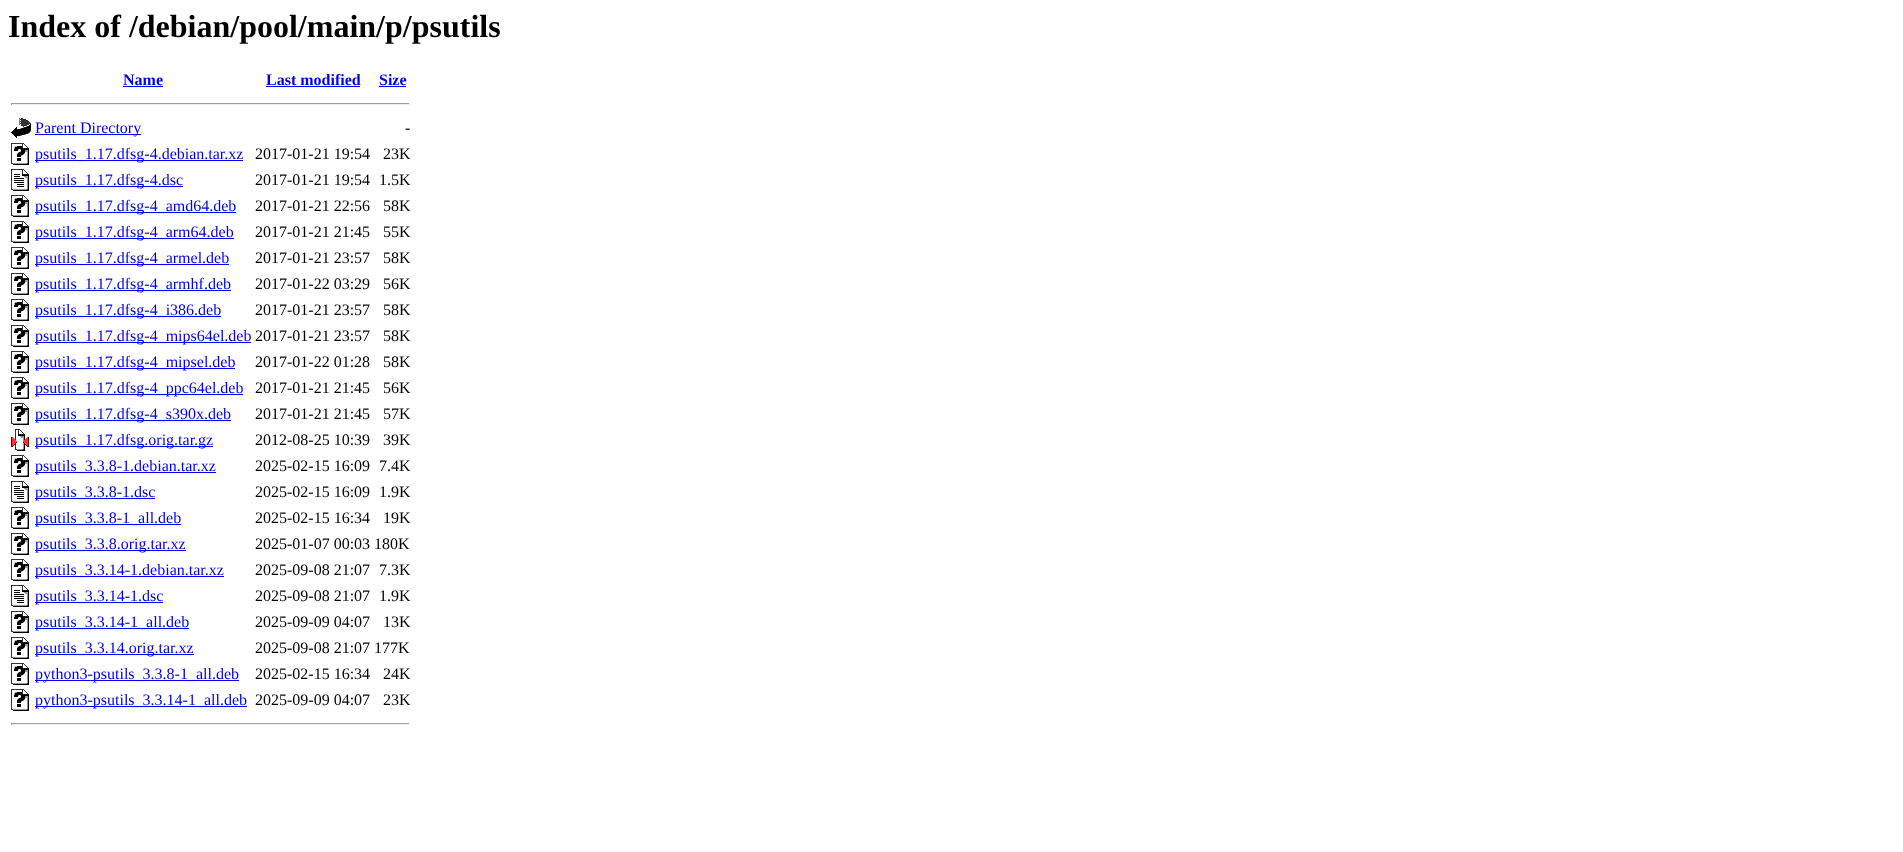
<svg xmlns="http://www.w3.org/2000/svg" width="1903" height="852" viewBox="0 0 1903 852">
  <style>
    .t1 { font: bold 32px Liberation Serif; fill: #000; }
    .t2 { font: bold 16px Liberation Serif; fill: #00e; }
    .t3 { font: 16px Liberation Serif; fill: #00e; }
    .t4 { font: 16px Liberation Serif; fill: #000; }
  </style>
  <rect width="100%" height="100%" fill="#fff"/>
  <text x="8" y="37" class="t1">Index of /debian/pool/main/p/psutils</text>
  <text x="123" y="85" class="t2">Name</text>
  <rect x="123" y="86" width="40" height="1" fill="#00e"/>
  <text x="266" y="85" class="t2">Last modified</text>
  <rect x="266" y="86" width="94" height="1" fill="#00e"/>
  <text x="379" y="85" class="t2">Size</text>
  <rect x="379" y="86" width="27" height="1" fill="#00e"/>
  <rect x="11" y="103" width="399" height="1" fill="#9f9f9f"/>
  <rect x="409" y="103" width="1" height="2" fill="#eee"/>
  <rect x="11" y="104" width="399" height="1" fill="#eee"/>
  <rect x="11" y="103" width="1" height="2" fill="#9f9f9f"/>
  <image x="11" y="118" width="20" height="20" href="images/1.png"/>
  <rect x="35" y="134" width="106" height="1" fill="#00e"/>
  <text x="35" y="133" class="t3">Parent Directory</text>
  <text x="405" y="133" class="t4">-</text>
  <image x="11" y="143" width="18" height="22" href="images/2.png"/>
  <rect x="35" y="160" width="208" height="1" fill="#00e"/>
  <text x="35" y="159" class="t3">psutils_1.17.dfsg-4.debian.tar.xz</text>
  <text x="255" y="159" class="t4">2017-01-21 19:54</text>
  <text x="383" y="159" class="t4">23K</text>
  <image x="11" y="169" width="18" height="22" href="images/3.png"/>
  <rect x="35" y="186" width="148" height="1" fill="#00e"/>
  <text x="35" y="185" class="t3">psutils_1.17.dfsg-4.dsc</text>
  <text x="255" y="185" class="t4">2017-01-21 19:54</text>
  <text x="379" y="185" class="t4">1.5K</text>
  <image x="11" y="195" width="18" height="22" href="images/2.png"/>
  <rect x="35" y="212" width="201" height="1" fill="#00e"/>
  <text x="35" y="211" class="t3">psutils_1.17.dfsg-4_amd64.deb</text>
  <text x="255" y="211" class="t4">2017-01-21 22:56</text>
  <text x="383" y="211" class="t4">58K</text>
  <image x="11" y="221" width="18" height="22" href="images/2.png"/>
  <rect x="35" y="238" width="199" height="1" fill="#00e"/>
  <text x="35" y="237" class="t3">psutils_1.17.dfsg-4_arm64.deb</text>
  <text x="255" y="237" class="t4">2017-01-21 21:45</text>
  <text x="383" y="237" class="t4">55K</text>
  <image x="11" y="247" width="18" height="22" href="images/2.png"/>
  <rect x="35" y="264" width="194" height="1" fill="#00e"/>
  <text x="35" y="263" class="t3">psutils_1.17.dfsg-4_armel.deb</text>
  <text x="255" y="263" class="t4">2017-01-21 23:57</text>
  <text x="383" y="263" class="t4">58K</text>
  <image x="11" y="273" width="18" height="22" href="images/2.png"/>
  <rect x="35" y="290" width="196" height="1" fill="#00e"/>
  <text x="35" y="289" class="t3">psutils_1.17.dfsg-4_armhf.deb</text>
  <text x="255" y="289" class="t4">2017-01-22 03:29</text>
  <text x="383" y="289" class="t4">56K</text>
  <image x="11" y="299" width="18" height="22" href="images/2.png"/>
  <rect x="35" y="316" width="186" height="1" fill="#00e"/>
  <text x="35" y="315" class="t3">psutils_1.17.dfsg-4_i386.deb</text>
  <text x="255" y="315" class="t4">2017-01-21 23:57</text>
  <text x="383" y="315" class="t4">58K</text>
  <image x="11" y="325" width="18" height="22" href="images/2.png"/>
  <rect x="35" y="342" width="216" height="1" fill="#00e"/>
  <text x="35" y="341" class="t3">psutils_1.17.dfsg-4_mips64el.deb</text>
  <text x="255" y="341" class="t4">2017-01-21 23:57</text>
  <text x="383" y="341" class="t4">58K</text>
  <image x="11" y="351" width="18" height="22" href="images/2.png"/>
  <rect x="35" y="368" width="200" height="1" fill="#00e"/>
  <text x="35" y="367" class="t3">psutils_1.17.dfsg-4_mipsel.deb</text>
  <text x="255" y="367" class="t4">2017-01-22 01:28</text>
  <text x="383" y="367" class="t4">58K</text>
  <image x="11" y="377" width="18" height="22" href="images/2.png"/>
  <rect x="35" y="394" width="208" height="1" fill="#00e"/>
  <text x="35" y="393" class="t3">psutils_1.17.dfsg-4_ppc64el.deb</text>
  <text x="255" y="393" class="t4">2017-01-21 21:45</text>
  <text x="383" y="393" class="t4">56K</text>
  <image x="11" y="403" width="18" height="22" href="images/2.png"/>
  <rect x="35" y="420" width="196" height="1" fill="#00e"/>
  <text x="35" y="419" class="t3">psutils_1.17.dfsg-4_s390x.deb</text>
  <text x="255" y="419" class="t4">2017-01-21 21:45</text>
  <text x="383" y="419" class="t4">57K</text>
  <image x="11" y="429" width="18" height="22" href="images/4.png"/>
  <rect x="35" y="446" width="178" height="1" fill="#00e"/>
  <text x="35" y="445" class="t3">psutils_1.17.dfsg.orig.tar.gz</text>
  <text x="255" y="445" class="t4">2012-08-25 10:39</text>
  <text x="383" y="445" class="t4">39K</text>
  <image x="11" y="455" width="18" height="22" href="images/2.png"/>
  <rect x="35" y="472" width="181" height="1" fill="#00e"/>
  <text x="35" y="471" class="t3">psutils_3.3.8-1.debian.tar.xz</text>
  <text x="255" y="471" class="t4">2025-02-15 16:09</text>
  <text x="379" y="471" class="t4">7.4K</text>
  <image x="11" y="481" width="18" height="22" href="images/3.png"/>
  <rect x="35" y="498" width="120" height="1" fill="#00e"/>
  <text x="35" y="497" class="t3">psutils_3.3.8-1.dsc</text>
  <text x="255" y="497" class="t4">2025-02-15 16:09</text>
  <text x="379" y="497" class="t4">1.9K</text>
  <image x="11" y="507" width="18" height="22" href="images/2.png"/>
  <rect x="35" y="524" width="146" height="1" fill="#00e"/>
  <text x="35" y="523" class="t3">psutils_3.3.8-1_all.deb</text>
  <text x="255" y="523" class="t4">2025-02-15 16:34</text>
  <text x="383" y="523" class="t4">19K</text>
  <image x="11" y="533" width="18" height="22" href="images/2.png"/>
  <rect x="35" y="550" width="151" height="1" fill="#00e"/>
  <text x="35" y="549" class="t3">psutils_3.3.8.orig.tar.xz</text>
  <text x="255" y="549" class="t4">2025-01-07 00:03 180K</text>
  <image x="11" y="559" width="18" height="22" href="images/2.png"/>
  <rect x="35" y="576" width="189" height="1" fill="#00e"/>
  <text x="35" y="575" class="t3">psutils_3.3.14-1.debian.tar.xz</text>
  <text x="255" y="575" class="t4">2025-09-08 21:07</text>
  <text x="379" y="575" class="t4">7.3K</text>
  <image x="11" y="585" width="18" height="22" href="images/3.png"/>
  <rect x="35" y="602" width="128" height="1" fill="#00e"/>
  <text x="35" y="601" class="t3">psutils_3.3.14-1.dsc</text>
  <text x="255" y="601" class="t4">2025-09-08 21:07</text>
  <text x="379" y="601" class="t4">1.9K</text>
  <image x="11" y="611" width="18" height="22" href="images/2.png"/>
  <rect x="35" y="628" width="154" height="1" fill="#00e"/>
  <text x="35" y="627" class="t3">psutils_3.3.14-1_all.deb</text>
  <text x="255" y="627" class="t4">2025-09-09 04:07</text>
  <text x="383" y="627" class="t4">13K</text>
  <image x="11" y="637" width="18" height="22" href="images/2.png"/>
  <rect x="35" y="654" width="159" height="1" fill="#00e"/>
  <text x="35" y="653" class="t3">psutils_3.3.14.orig.tar.xz</text>
  <text x="255" y="653" class="t4">2025-09-08 21:07 177K</text>
  <image x="11" y="663" width="18" height="22" href="images/2.png"/>
  <rect x="35" y="680" width="204" height="1" fill="#00e"/>
  <text x="35" y="679" class="t3">python3-psutils_3.3.8-1_all.deb</text>
  <text x="255" y="679" class="t4">2025-02-15 16:34</text>
  <text x="383" y="679" class="t4">24K</text>
  <image x="11" y="689" width="18" height="22" href="images/2.png"/>
  <rect x="35" y="706" width="212" height="1" fill="#00e"/>
  <text x="35" y="705" class="t3">python3-psutils_3.3.14-1_all.deb</text>
  <text x="255" y="705" class="t4">2025-09-09 04:07</text>
  <text x="383" y="705" class="t4">23K</text>
  <rect x="11" y="723" width="399" height="1" fill="#9f9f9f"/>
  <rect x="409" y="723" width="1" height="2" fill="#eee"/>
  <rect x="11" y="724" width="399" height="1" fill="#eee"/>
  <rect x="11" y="723" width="1" height="2" fill="#9f9f9f"/>
</svg>
